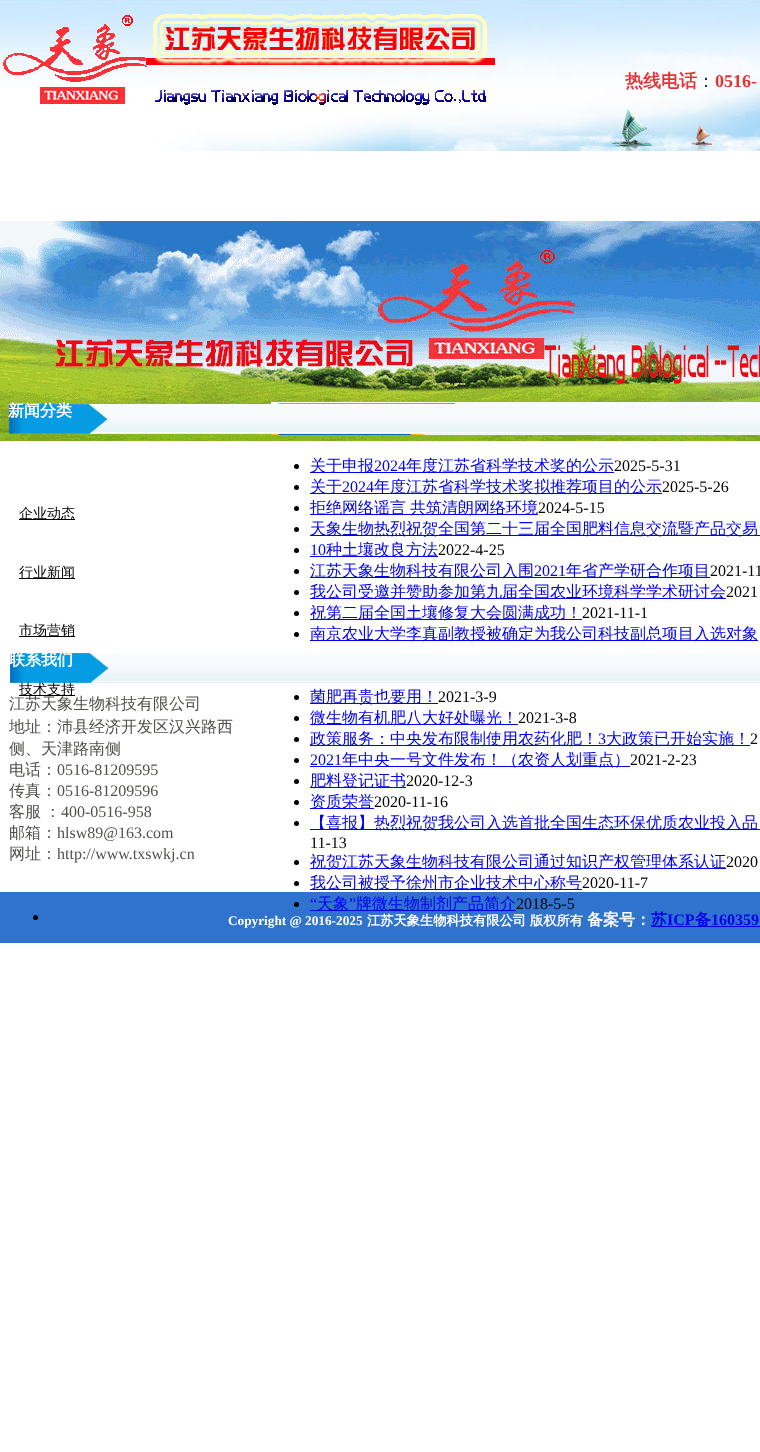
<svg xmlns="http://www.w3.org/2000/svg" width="760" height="1452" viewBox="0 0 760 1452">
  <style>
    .t1 { font: bold 18px WenQuanYi Zen Hei; fill: #e53333; }
    .t2 { font: 500 18px WenQuanYi Zen Hei; fill: #039; }
    .t3 { font: bold 18px Liberation Serif; fill: #e53333; }
    .t4 { font: bold 16px WenQuanYi Zen Hei; fill: #fff; }
    .t5 { font: 500 14px WenQuanYi Zen Hei; fill: #000; }
    .t6 { font: 500 16px WenQuanYi Zen Hei; fill: #00e; }
    .t7 { font: 16px Liberation Serif; fill: #00e; }
    .t8 { font: 16px Liberation Serif; fill: #000; }
    .t9 { font: 500 16px WenQuanYi Zen Hei; fill: #51504d; }
    .t10 { font: 16px Liberation Serif; fill: #51504d; }
    .t11 { font: bold 13.25px Liberation Serif; fill: #fff; }
    .t12 { font: bold 13.25px WenQuanYi Zen Hei; fill: #fff; }
    .t13 { font: bold 16px WenQuanYi Zen Hei; fill: #00e; }
    .t14 { font: bold 16px Liberation Serif; fill: #00e; }
  </style>
  <rect width="100%" height="100%" fill="#fff"/>
  <image x="0" y="0" width="760" height="151" href="images/1.png"/>
  <image x="3" y="13" width="492" height="92" href="images/2.png"/>
  <text x="625" y="87" class="t1">热线电话</text>
  <text x="697" y="87" class="t2">：</text>
  <text x="715" y="87" class="t3">0516-</text>
  <image x="0" y="221" width="760" height="220" href="images/3.png"/>
  <image x="271" y="402" width="489" height="33" href="images/4.png"/>
  <image x="9" y="404" width="751" height="30" href="images/5.png"/>
  <text x="8" y="416" class="t4">新闻分类</text>
  <rect x="19" y="519" width="56" height="1" fill="#000"/>
  <text x="19" y="518" class="t5">企业动态</text>
  <rect x="19" y="578" width="56" height="1" fill="#000"/>
  <text x="19" y="577" class="t5">行业新闻</text>
  <rect x="19" y="636" width="56" height="1" fill="#000"/>
  <text x="19" y="635" class="t5">市场营销</text>
  <rect x="19" y="695" width="56" height="1" fill="#000"/>
  <image x="10" y="653" width="750" height="30" href="images/6.png"/>
  <text x="19" y="694" class="t5">技术支持</text>
  <circle cx="296.5" cy="466.5" r="2.5" fill="#000"/>
  <rect x="310" y="472" width="304" height="1" fill="#00e"/>
  <text x="310" y="471" class="t6">关于申报</text>
  <text x="374" y="471" class="t7">2024</text>
  <text x="406" y="471" class="t6">年度江苏省科学技术奖的公示</text>
  <text x="614" y="471" class="t8">2025-5-31</text>
  <circle cx="296.5" cy="487.5" r="2.5" fill="#000"/>
  <rect x="310" y="493" width="352" height="1" fill="#00e"/>
  <text x="310" y="492" class="t6">关于</text>
  <text x="342" y="492" class="t7">2024</text>
  <text x="374" y="492" class="t6">年度江苏省科学技术奖拟推荐项目的公示</text>
  <text x="662" y="492" class="t8">2025-5-26</text>
  <circle cx="296.5" cy="508.5" r="2.5" fill="#000"/>
  <rect x="310" y="514" width="228" height="1" fill="#00e"/>
  <text x="310" y="513" class="t6">拒绝网络谣言</text>
  <text x="410" y="513" class="t6">共筑清朗网络环境</text>
  <text x="538" y="513" class="t8">2024-5-15</text>
  <circle cx="296.5" cy="529.5" r="2.5" fill="#000"/>
  <rect x="310" y="535" width="450" height="1" fill="#00e"/>
  <text x="310" y="534" class="t6">天象生物热烈祝贺全国第二十三届全国肥料信息交流暨产品交易</text>
  <circle cx="296.5" cy="550.5" r="2.5" fill="#000"/>
  <text x="310" y="555" class="t7">10</text>
  <rect x="310" y="556" width="128" height="1" fill="#00e"/>
  <text x="326" y="555" class="t6">种土壤改良方法</text>
  <text x="438" y="555" class="t8">2022-4-25</text>
  <circle cx="296.5" cy="571.5" r="2.5" fill="#000"/>
  <rect x="310" y="577" width="400" height="1" fill="#00e"/>
  <text x="310" y="576" class="t6">江苏天象生物科技有限公司入围</text>
  <text x="534" y="576" class="t7">2021</text>
  <text x="566" y="576" class="t6">年省产学研合作项目</text>
  <text x="710" y="576" class="t8">2021-11</text>
  <circle cx="296.5" cy="592.5" r="2.5" fill="#000"/>
  <rect x="310" y="598" width="416" height="1" fill="#00e"/>
  <text x="310" y="597" class="t6">我公司受邀并赞助参加第九届全国农业环境科学学术研讨会</text>
  <text x="726" y="597" class="t8">2021</text>
  <circle cx="296.5" cy="613.5" r="2.5" fill="#000"/>
  <rect x="310" y="619" width="272" height="1" fill="#00e"/>
  <text x="310" y="618" class="t6">祝第二届全国土壤修复大会圆满成功！</text>
  <text x="582" y="618" class="t8">2021-11-1</text>
  <circle cx="296.5" cy="634.5" r="2.5" fill="#000"/>
  <rect x="310" y="640" width="448" height="1" fill="#00e"/>
  <text x="310" y="639" class="t6">南京农业大学李真副教授被确定为我公司科技副总项目入选对象</text>
  <circle cx="296.5" cy="697.5" r="2.5" fill="#000"/>
  <rect x="310" y="703" width="128" height="1" fill="#00e"/>
  <text x="310" y="702" class="t6">菌肥再贵也要用！</text>
  <text x="438" y="702" class="t8">2021-3-9</text>
  <circle cx="296.5" cy="718.5" r="2.5" fill="#000"/>
  <rect x="310" y="724" width="208" height="1" fill="#00e"/>
  <text x="310" y="723" class="t6">微生物有机肥八大好处曝光！</text>
  <text x="518" y="723" class="t8">2021-3-8</text>
  <circle cx="296.5" cy="739.5" r="2.5" fill="#000"/>
  <rect x="310" y="745" width="440" height="1" fill="#00e"/>
  <text x="310" y="744" class="t6">政策服务：中央发布限制使用农药化肥！</text>
  <text x="598" y="744" class="t7">3</text>
  <text x="606" y="744" class="t6">大政策已开始实施！</text>
  <text x="750" y="744" class="t8">2</text>
  <circle cx="296.5" cy="760.5" r="2.5" fill="#000"/>
  <text x="310" y="765" class="t7">2021</text>
  <rect x="310" y="766" width="320" height="1" fill="#00e"/>
  <text x="342" y="765" class="t6">年中央一号文件发布！（农资人划重点）</text>
  <text x="630" y="765" class="t8">2021-2-23</text>
  <circle cx="296.5" cy="781.5" r="2.5" fill="#000"/>
  <rect x="310" y="787" width="96" height="1" fill="#00e"/>
  <text x="310" y="786" class="t6">肥料登记证书</text>
  <text x="406" y="786" class="t8">2020-12-3</text>
  <circle cx="296.5" cy="802.5" r="2.5" fill="#000"/>
  <rect x="310" y="808" width="64" height="1" fill="#00e"/>
  <text x="310" y="807" class="t6">资质荣誉</text>
  <text x="374" y="807" class="t8">2020-11-16</text>
  <circle cx="296.5" cy="823.5" r="2.5" fill="#000"/>
  <rect x="310" y="829" width="450" height="1" fill="#00e"/>
  <text x="310" y="828" class="t6">【喜报】热烈祝贺我公司入选首批全国生态环保优质农业投入品</text>
  <text x="310" y="848" class="t8">11-13</text>
  <circle cx="296.5" cy="862.5" r="2.5" fill="#000"/>
  <rect x="310" y="868" width="416" height="1" fill="#00e"/>
  <text x="310" y="867" class="t6">祝贺江苏天象生物科技有限公司通过知识产权管理体系认证</text>
  <text x="726" y="867" class="t8">2020</text>
  <circle cx="296.5" cy="883.5" r="2.5" fill="#000"/>
  <rect x="310" y="889" width="272" height="1" fill="#00e"/>
  <text x="310" y="888" class="t6">我公司被授予徐州市企业技术中心称号</text>
  <text x="582" y="888" class="t8">2020-11-7</text>
  <rect x="0" y="892" width="760" height="51" fill="#3073ce"/>
  <circle cx="296.5" cy="904.5" r="2.5" fill="#000"/>
  <text x="310" y="909" class="t7">“</text>
  <rect x="310" y="910" width="206" height="1" fill="#00e"/>
  <text x="317" y="909" class="t6">天象</text>
  <text x="349" y="909" class="t7">”</text>
  <text x="356" y="909" class="t6">牌微生物制剂产品简介</text>
  <text x="516" y="909" class="t8">2018-5-5</text>
  <text x="9" y="665" class="t4">联系我们</text>
  <text x="9" y="709" class="t9">江苏天象生物科技有限公司</text>
  <text x="9" y="732" class="t9">地址：沛县经济开发区汉兴路西</text>
  <text x="9" y="754" class="t9">侧、天津路南侧</text>
  <text x="9" y="775" class="t9">电话：</text>
  <text x="57" y="775" class="t10">0516-81209595</text>
  <text x="9" y="796" class="t9">传真：</text>
  <text x="57" y="796" class="t10">0516-81209596</text>
  <text x="9" y="817" word-spacing="-1" class="t9">客服 ：</text>
  <text x="61" y="817" class="t10">400-0516-958</text>
  <text x="9" y="838" class="t9">邮箱：</text>
  <text x="57" y="838" class="t10">hlsw89@163.com</text>
  <text x="9" y="859" class="t9">网址：</text>
  <text x="57" y="859" class="t10">http://www.txswkj.cn</text>
  <circle cx="35.5" cy="917.5" r="2.5" fill="#000"/>
  <text x="228" y="925" class="t11">Copyright @ 2016-2025</text>
  <text x="367" y="925" class="t12">江苏天象生物科技有限公司</text>
  <text x="530" y="925" class="t12">版权所有</text>
  <text x="587" y="925" class="t4">备案号：</text>
  <rect x="651" y="926" width="109" height="1" fill="#00e"/>
  <text x="651" y="925" class="t13">苏</text>
  <text x="667" y="925" class="t14">ICP</text>
  <text x="695" y="925" class="t13">备</text>
  <text x="711" y="925" class="t14">160359</text>
</svg>
